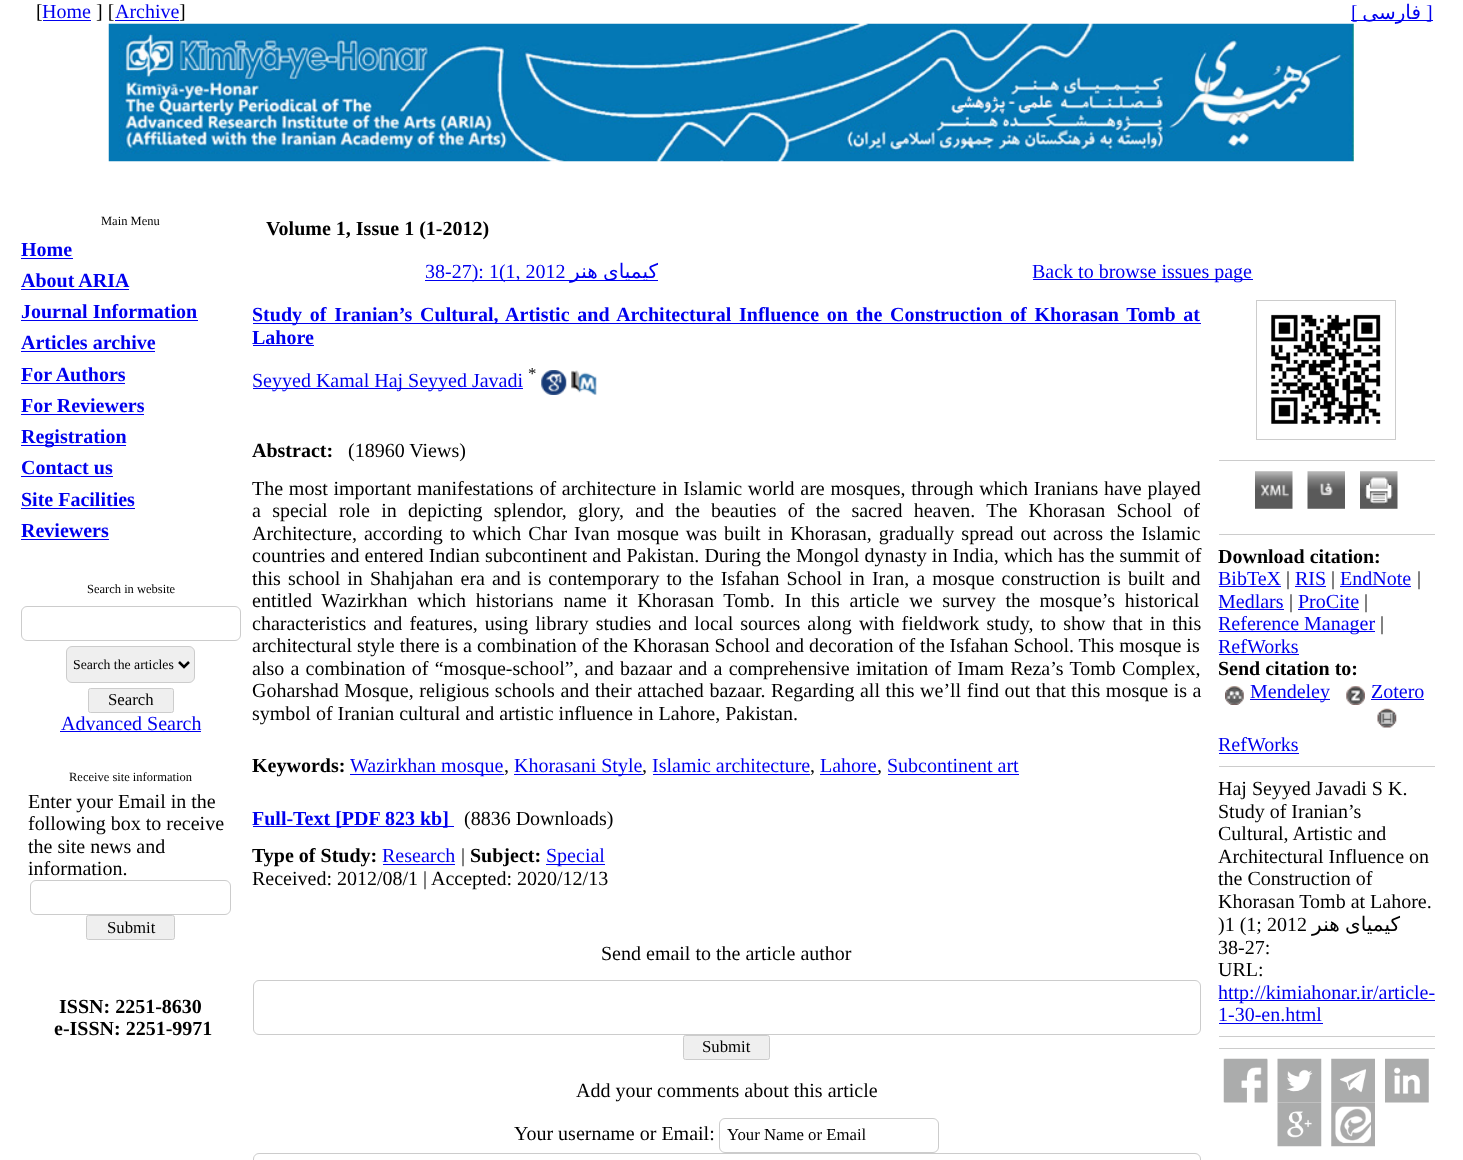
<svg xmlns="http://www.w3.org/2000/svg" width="1463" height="1160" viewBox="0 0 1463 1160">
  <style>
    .t1 { font: 20px Liberation Serif; fill: #000; }
    .t2 { font: 20px Liberation Serif; fill: #00e; }
    .t3 { font: 20px DejaVu Sans; direction: rtl; fill: #00e; }
    .t4 { font: 12.5px Liberation Serif; fill: #000; }
    .t5 { font: bold 20px Liberation Serif; fill: #00e; }
    .t6 { font: 13.75px Liberation Serif; fill: #000; }
    .t7 { font: 16.75px Liberation Serif; fill: #000; }
    .t8 { font: bold 20px Liberation Serif; fill: #000; }
    .t9 { font: 20px DejaVu Sans; direction: rtl; fill: #000; }
  </style>
  <rect width="100%" height="100%" fill="#fff"/>
  <text x="36" y="18" class="t1">[</text>
  <text x="42" y="18" class="t2">Home</text>
  <rect x="43" y="20" width="48" height="1" fill="#00e"/>
  <text x="96" y="18" class="t1">] [</text>
  <text x="115" y="18" class="t2">Archive</text>
  <rect x="115" y="20" width="64" height="1" fill="#00e"/>
  <text x="179" y="18" class="t1">]</text>
  <rect x="1351" y="20" width="82" height="1" fill="#00e"/>
  <text x="1351" y="19" class="t2">[</text>
  <text x="1421" y="19" class="t3">فارسی</text>
  <text x="1426" y="19" class="t2">]</text>
  <image x="108" y="23" width="1246" height="139" href="images/1.png"/>
  <text x="101" y="225" class="t4">Main Menu</text>
  <text x="21" y="256" class="t5">Home</text>
  <rect x="21" y="258" width="52" height="1" fill="#00e"/>
  <text x="21" y="287" class="t5">About ARIA</text>
  <rect x="21" y="289" width="108" height="1" fill="#00e"/>
  <text x="21" y="318" class="t5">Journal Information</text>
  <rect x="21" y="320" width="177" height="1" fill="#00e"/>
  <text x="21" y="349" class="t5">Articles archive</text>
  <rect x="21" y="351" width="134" height="1" fill="#00e"/>
  <text x="21" y="381" class="t5">For Authors</text>
  <rect x="21" y="383" width="104" height="1" fill="#00e"/>
  <text x="21" y="412" class="t5">For Reviewers</text>
  <rect x="21" y="414" width="123" height="1" fill="#00e"/>
  <rect x="21" y="445" width="105" height="1" fill="#00e"/>
  <text x="21" y="443" class="t5">Registration</text>
  <text x="21" y="474" class="t5">Contact us</text>
  <rect x="21" y="476" width="92" height="1" fill="#00e"/>
  <text x="21" y="506" class="t5">Site Facilities</text>
  <rect x="21" y="508" width="114" height="1" fill="#00e"/>
  <text x="21" y="537" class="t5">Reviewers</text>
  <rect x="21" y="539" width="88" height="1" fill="#00e"/>
  <text x="87" y="593" class="t4">Search in website</text>
  <rect x="21.5" y="606.5" width="219" height="34" rx="5.5" fill="none" stroke="#ccc"/>
  <rect x="66.5" y="646.5" width="128" height="36" rx="5.5" fill="#efefef" stroke="#ccc"/>
  <path d="M179 662L184 667L189 662" fill="none" stroke="#000" stroke-width="2.5"/>
  <text x="73" y="669" class="t6">Search the articles</text>
  <rect x="88.5" y="688.5" width="85" height="24" rx="2" fill="#efefef" stroke="#ccc"/>
  <text x="108" y="705" class="t7">Search</text>
  <text x="61" y="730" class="t2">Advanced Search</text>
  <rect x="60" y="731" width="141" height="1" fill="#00e"/>
  <text x="69" y="781" class="t4">Receive site information</text>
  <text x="28" y="808" class="t1">Enter your Email in the</text>
  <text x="28" y="830" class="t1">following box to receive</text>
  <text x="28" y="853" class="t1">the site news and</text>
  <text x="28" y="875" class="t1">information.</text>
  <rect x="30.5" y="880.5" width="200" height="34" rx="5.5" fill="none" stroke="#ccc"/>
  <rect x="86.5" y="915.5" width="88" height="24" rx="2" fill="#efefef" stroke="#ccc"/>
  <text x="107" y="933" class="t7">Submit</text>
  <text x="59" y="1013" class="t8">ISSN: 2251-8630</text>
  <text x="54" y="1035" class="t8">e-ISSN: 2251-9971</text>
  <text x="266" y="235" class="t8">Volume 1, Issue 1 (1-2012)</text>
  <rect x="425" y="280" width="233" height="1" fill="#00e"/>
  <text x="425" y="278" class="t2">38-27): 1(1, 2012</text>
  <text x="658" y="278" word-spacing="-1" class="t3">کیمیای هنر</text>
  <rect x="1033" y="279" width="220" height="1" fill="#00e"/>
  <text x="1032" y="278" class="t2">Back to browse issues page</text>
  <rect x="253" y="323" width="948" height="1" fill="#00e"/>
  <text x="252" y="321" word-spacing="2.75" class="t5">Study of Iranian’s Cultural, Artistic and Architectural Influence on the Construction of Khorasan Tomb at</text>
  <text x="252" y="344" class="t5">Lahore</text>
  <rect x="253" y="345" width="61" height="1" fill="#00e"/>
  <rect x="253" y="388" width="270" height="1" fill="#00e"/>
  <text x="252" y="387" class="t2">Seyyed Kamal Haj Seyyed Javadi</text>
  <text x="528" y="379" class="t7">*</text>
  <image x="541" y="370" width="26" height="25" href="images/2.png"/>
  <image x="571" y="370" width="26" height="25" href="images/3.png"/>
  <text x="252" y="457" class="t8">Abstract:</text>
  <text x="348" y="457" class="t1">(18960 Views)</text>
  <text x="252" y="495" word-spacing="0.75" class="t1">The most important manifestations of architecture in Islamic world are mosques, through which Iranians have played</text>
  <text x="252" y="517" word-spacing="6.25" class="t1">a special role in depicting splendor, glory, and the beauties of the sacred heaven. The Khorasan School of</text>
  <text x="252" y="540" word-spacing="2" class="t1">Architecture, according to which Char Ivan mosque was built in Khorasan, gradually spread out across the Islamic</text>
  <text x="252" y="562" word-spacing="0.2" class="t1">countries and entered Indian subcontinent and Pakistan. During the Mongol dynasty in India, which has the summit of</text>
  <text x="252" y="585" word-spacing="2.1" class="t1">this school in Shahjahan era and is contemporary to the Isfahan School in Iran, a mosque construction is built and</text>
  <text x="252" y="607" word-spacing="4.75" class="t1">entitled Wazirkhan which historians name it Khorasan Tomb. In this article we survey the mosque’s historical</text>
  <text x="252" y="630" word-spacing="2.1" class="t1">characteristics and features, using library studies and local sources along with fieldwork study, to show that in this</text>
  <text x="252" y="652" class="t1">architectural style there is a combination of the Khorasan School and decoration of the Isfahan School. This mosque is</text>
  <text x="252" y="675" word-spacing="1.25" class="t1">also a combination of “mosque-school”, and bazaar and a comprehensive imitation of Imam Reza’s Tomb Complex,</text>
  <text x="252" y="697" word-spacing="0.6" class="t1">Goharshad Mosque, religious schools and their attached bazaar. Regarding all this we’ll find out that this mosque is a</text>
  <text x="252" y="720" class="t1">symbol of Iranian cultural and artistic influence in Lahore, Pakistan.</text>
  <text x="252" y="772" class="t8">Keywords:</text>
  <rect x="350" y="774" width="154" height="1" fill="#00e"/>
  <text x="350" y="772" class="t2">Wazirkhan mosque</text>
  <text x="504" y="772" class="t1">,</text>
  <rect x="514" y="774" width="129" height="1" fill="#00e"/>
  <text x="514" y="772" class="t2">Khorasani Style</text>
  <text x="642" y="772" class="t1">,</text>
  <text x="652" y="772" class="t2">Islamic architecture</text>
  <rect x="653" y="774" width="157" height="1" fill="#00e"/>
  <text x="810" y="772" class="t1">,</text>
  <text x="820" y="772" class="t2">Lahore</text>
  <rect x="820" y="774" width="58" height="1" fill="#00e"/>
  <text x="877" y="772" class="t1">,</text>
  <text x="887" y="772" class="t2">Subcontinent art</text>
  <rect x="888" y="774" width="131" height="1" fill="#00e"/>
  <rect x="253" y="826" width="201" height="1" fill="#00e"/>
  <text x="252" y="825" class="t5">Full-Text [PDF 823 kb]</text>
  <text x="464" y="825" class="t1">(8836 Downloads)</text>
  <text x="252" y="862" class="t8">Type of Study:</text>
  <text x="382" y="862" class="t2">Research</text>
  <rect x="383" y="864" width="72" height="1" fill="#00e"/>
  <text x="461" y="862" class="t1">|</text>
  <text x="470" y="862" class="t8">Subject:</text>
  <rect x="546" y="864" width="59" height="1" fill="#00e"/>
  <text x="546" y="862" class="t2">Special</text>
  <text x="252" y="885" class="t1">Received: 2012/08/1 | Accepted: 2020/12/13</text>
  <text x="601" y="960" class="t1">Send email to the article author</text>
  <rect x="253.5" y="980.5" width="947" height="54" rx="5.5" fill="none" stroke="#ccc"/>
  <rect x="683.5" y="1035.5" width="86" height="24" rx="2" fill="#efefef" stroke="#ccc"/>
  <text x="702" y="1052" class="t7">Submit</text>
  <text x="576" y="1097" class="t1">Add your comments about this article</text>
  <text x="514" y="1140" class="t1">Your username or Email:</text>
  <rect x="719.5" y="1118.5" width="219" height="34" rx="5.5" fill="none" stroke="#ccc"/>
  <text x="727" y="1140" class="t7">Your Name or Email</text>
  <rect x="253.5" y="1153.5" width="947" height="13" rx="5.5" fill="none" stroke="#ccc"/>
  <rect x="1256.5" y="300.5" width="139" height="139" fill="none" stroke="#ccc"/>
  <image x="1271" y="314" width="110" height="110" href="images/4.png"/>
  <rect x="1219" y="460" width="216" height="1" fill="#ccc"/>
  <image x="1255" y="471" width="38" height="38" href="images/5.png"/>
  <image x="1307" y="471" width="38" height="38" href="images/6.png"/>
  <image x="1360" y="471" width="38" height="38" href="images/7.png"/>
  <rect x="1219" y="534" width="216" height="1" fill="#ccc"/>
  <text x="1218" y="563" class="t8">Download citation:</text>
  <text x="1218" y="585" class="t2">BibTeX</text>
  <rect x="1219" y="586" width="62" height="1" fill="#00e"/>
  <text x="1286" y="585" class="t1">|</text>
  <text x="1295" y="585" class="t2">RIS</text>
  <rect x="1295" y="586" width="31" height="1" fill="#00e"/>
  <text x="1331" y="585" class="t1">|</text>
  <text x="1340" y="585" class="t2">EndNote</text>
  <rect x="1340" y="586" width="71" height="1" fill="#00e"/>
  <text x="1417" y="585" class="t1">|</text>
  <text x="1218" y="608" class="t2">Medlars</text>
  <rect x="1219" y="609" width="65" height="1" fill="#00e"/>
  <text x="1289" y="608" class="t1">|</text>
  <text x="1298" y="608" class="t2">ProCite</text>
  <rect x="1298" y="609" width="61" height="1" fill="#00e"/>
  <text x="1364" y="608" class="t1">|</text>
  <rect x="1219" y="631" width="156" height="1" fill="#00e"/>
  <text x="1218" y="630" class="t2">Reference Manager</text>
  <text x="1380" y="630" class="t1">|</text>
  <text x="1218" y="653" class="t2">RefWorks</text>
  <rect x="1219" y="654" width="80" height="1" fill="#00e"/>
  <text x="1218" y="675" class="t8">Send citation to:</text>
  <image x="1225" y="686" width="19" height="19" href="images/8.png"/>
  <rect x="1250" y="699" width="80" height="1" fill="#00e"/>
  <text x="1250" y="698" class="t2">Mendeley</text>
  <image x="1346" y="686" width="19" height="19" href="images/9.png"/>
  <text x="1371" y="698" class="t2">Zotero</text>
  <rect x="1371" y="699" width="53" height="1" fill="#00e"/>
  <image x="1377" y="708" width="20" height="20" href="images/10.png"/>
  <text x="1218" y="751" class="t2">RefWorks</text>
  <rect x="1219" y="753" width="80" height="1" fill="#00e"/>
  <rect x="1219" y="766" width="216" height="1" fill="#ccc"/>
  <text x="1218" y="795" class="t1">Haj Seyyed Javadi S K.</text>
  <text x="1218" y="818" class="t1">Study of Iranian’s</text>
  <text x="1218" y="840" class="t1">Cultural, Artistic and</text>
  <text x="1218" y="863" class="t1">Architectural Influence on</text>
  <text x="1218" y="885" class="t1">the Construction of</text>
  <text x="1218" y="908" class="t1">Khorasan Tomb at Lahore.</text>
  <text x="1218" y="931" class="t1">)1 (1; 2012</text>
  <text x="1400" y="931" word-spacing="-1" class="t9">کیمیای هنر</text>
  <text x="1218" y="954" class="t1">38-27:</text>
  <text x="1218" y="976" class="t1">URL:</text>
  <rect x="1219" y="1000" width="216" height="1" fill="#00e"/>
  <text x="1218" y="999" class="t2">http://kimiahonar.ir/article-</text>
  <text x="1218" y="1021" class="t2">1-30-en.html</text>
  <rect x="1219" y="1023" width="104" height="1" fill="#00e"/>
  <rect x="1219" y="1036" width="216" height="1" fill="#ccc"/>
  <rect x="1219" y="1048" width="216" height="1" fill="#ccc"/>
  <image x="1223" y="1058" width="45" height="45" href="images/11.png"/>
  <image x="1277" y="1058" width="45" height="45" href="images/12.png"/>
  <image x="1331" y="1058" width="44" height="45" href="images/13.png"/>
  <image x="1385" y="1058" width="44" height="45" href="images/14.png"/>
  <image x="1277" y="1102" width="45" height="45" href="images/15.png"/>
  <image x="1331" y="1102" width="44" height="45" href="images/16.png"/>
</svg>
